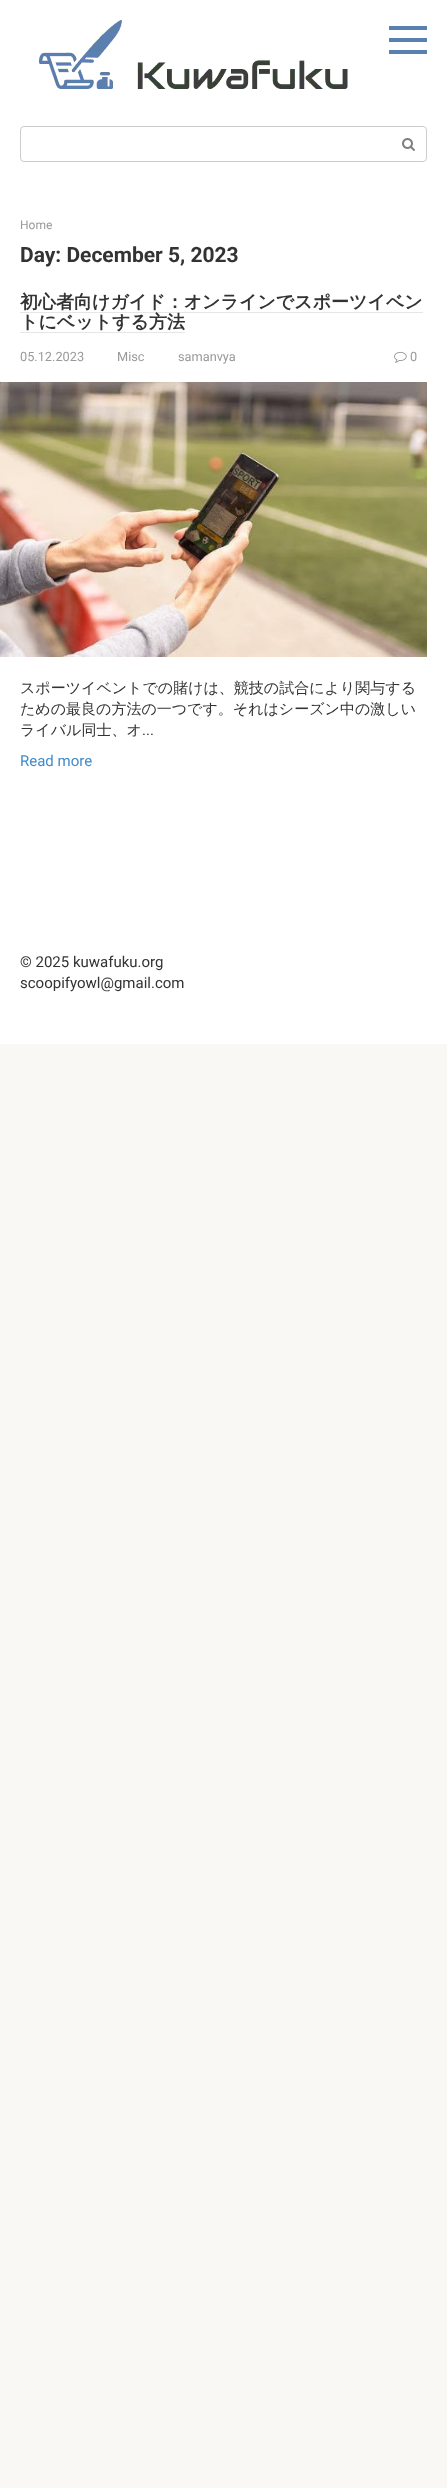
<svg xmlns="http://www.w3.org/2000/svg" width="447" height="2488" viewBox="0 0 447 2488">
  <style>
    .t1 { font: 12px Roboto; fill: #999; }
    .t2 { font: bold 21px Roboto; fill: #333; }
    .t3 { font: bold 18px WenQuanYi Zen Hei; fill: #333; }
    .t4 { font: 12.75px Roboto; fill: #999; }
    .t5 { font: 500 15px WenQuanYi Zen Hei; fill: #333; }
    .t6 { font: 15px Roboto; fill: #333; }
    .t7 { font: 15px Roboto; fill: #428bca; }
  </style>
  <rect width="100%" height="100%" fill="#f9f8f5"/>
  <rect x="0" y="0" width="447" height="1044" fill="#fff"/>
  <image x="39" y="20" width="309" height="69" href="images/1.png"/>
  <rect x="389" y="26" width="38" height="4" fill="#5a80b1"/>
  <rect x="389" y="50" width="38" height="4" fill="#5a80b1"/>
  <rect x="389" y="38" width="38" height="4" fill="#5a80b1"/>
  <rect x="20.5" y="126.5" width="406" height="35" rx="3.5" fill="none" stroke="#ccc"/>
  <image x="402" y="138" width="13" height="13" href="images/2.png"/>
  <text x="20" y="229" class="t1">Home</text>
  <text x="20" y="262" class="t2">Day: December 5, 2023</text>
  <text x="20" y="308" class="t3">初心者向けガイド：オンラインでスポーツイベン</text>
  <rect x="20" y="312" width="403" height="1" fill="#e6e6e6"/>
  <text x="20" y="328" class="t3">トにベットする方法</text>
  <rect x="20" y="332" width="165" height="1" fill="#e6e6e6"/>
  <text x="20" y="361" class="t4">05.12.2023</text>
  <text x="117" y="361" class="t4">Misc</text>
  <text x="178" y="361" class="t4">samanvya</text>
  <image x="394" y="351" width="13" height="12" href="images/3.png"/>
  <text x="410" y="361" class="t4">0</text>
  <image x="0" y="382" width="427" height="275" href="images/4.png"/>
  <text x="20" y="693" class="t5">スポーツイベントでの賭けは、競技の試合により関与する</text>
  <text x="20" y="714" class="t5">ための最良の方法の一つです。それはシーズン中の激しい</text>
  <text x="20" y="735" class="t5">ライバル同士、オ</text>
  <text x="142" y="735" class="t6">...</text>
  <text x="20" y="766" class="t7">Read more</text>
  <text x="20" y="967" class="t6">© 2025 kuwafuku.org</text>
  <text x="20" y="988" class="t6">scoopifyowl@gmail.com</text>
</svg>
